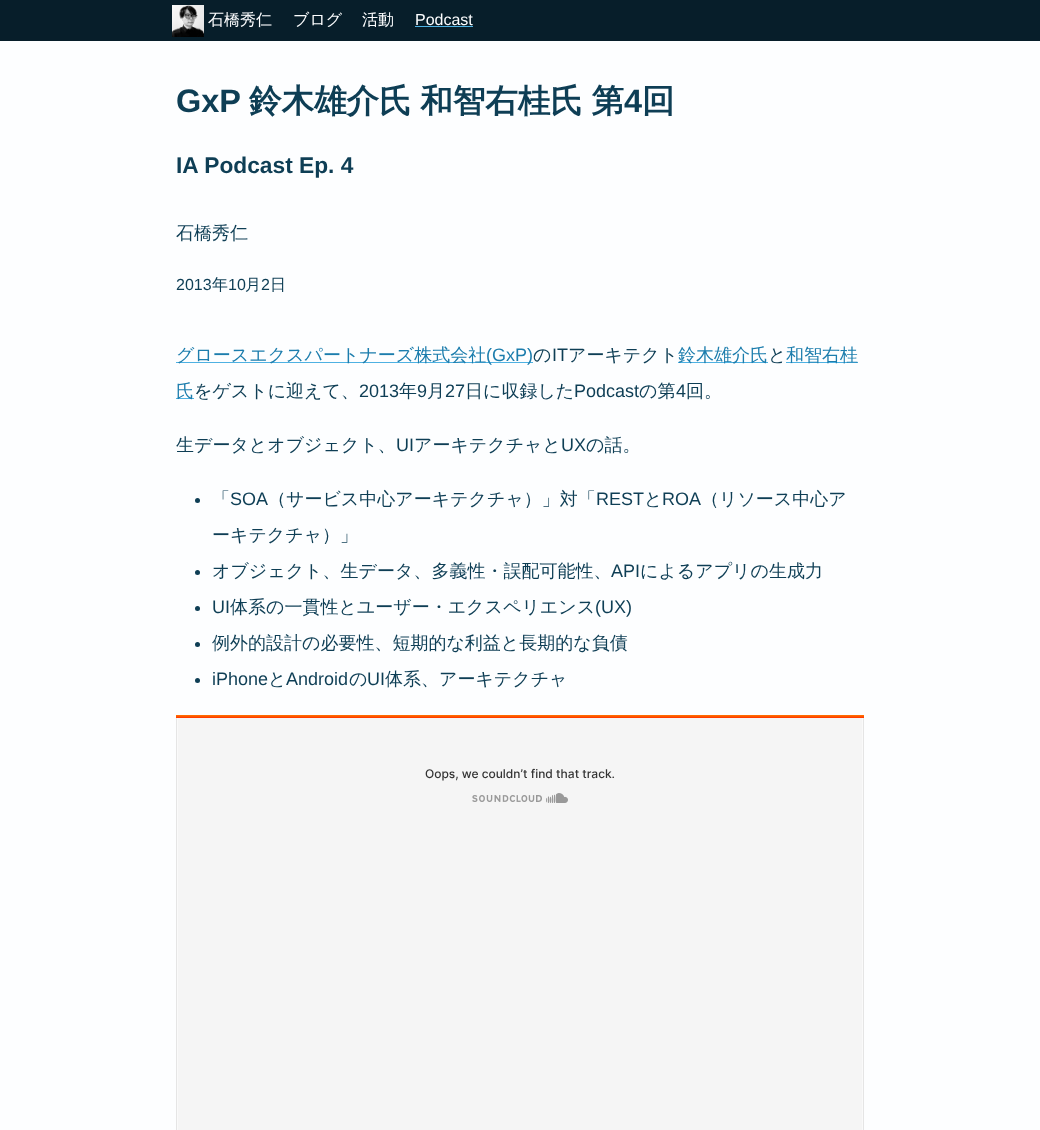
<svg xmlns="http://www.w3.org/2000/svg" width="1040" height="1130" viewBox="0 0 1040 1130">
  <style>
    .t1 { font: 500 16px WenQuanYi Zen Hei; fill: #fdfeff; }
    .t2 { font: 16px Liberation Sans; fill: #fdfeff; }
    .t3 { font: bold 32.5px Liberation Sans; fill: #0e3e55; }
    .t4 { font: bold 32.5px WenQuanYi Zen Hei; fill: #0e3e55; }
    .t5 { font: bold 22.75px Liberation Sans; fill: #0e3e55; }
    .t6 { font: 500 18px WenQuanYi Zen Hei; fill: #0e3e55; }
    .t7 { font: 16px Liberation Sans; fill: #0e3e55; }
    .t8 { font: 500 16px WenQuanYi Zen Hei; fill: #0e3e55; }
    .t9 { font: 500 18px WenQuanYi Zen Hei; fill: #1c7dad; }
    .t10 { font: 18px Liberation Sans; fill: #1c7dad; }
    .t11 { font: 18px Liberation Sans; fill: #0e3e55; }
  </style>
  <rect width="100%" height="100%" fill="#fdfeff"/>
  <rect x="0" y="0" width="1040" height="41" fill="#071e2a"/>
  <image x="172" y="5" width="32" height="32" href="images/1.png"/>
  <text x="208" y="25" class="t1">石橋秀仁</text>
  <text x="293" y="25" class="t1">ブログ</text>
  <text x="362" y="25" class="t1">活動</text>
  <text x="415" y="25" class="t2">Podcast</text>
  <rect x="415" y="26" width="58" height="1" fill="#4eb1e2"/>
  <text x="176" y="112" class="t3">GxP</text>
  <text x="249" y="112" word-spacing="-1" class="t4">鈴木雄介氏 和智右桂氏 第</text>
  <text x="624" y="112" class="t3">4</text>
  <text x="642" y="112" class="t4">回</text>
  <text x="176" y="173" class="t5">IA Podcast Ep. 4</text>
  <text x="176" y="239" class="t6">石橋秀仁</text>
  <text x="176" y="290" class="t7">2013</text>
  <text x="212" y="290" class="t8">年</text>
  <text x="228" y="290" class="t7">10</text>
  <text x="245" y="290" class="t8">月</text>
  <text x="261" y="290" class="t7">2</text>
  <text x="270" y="290" class="t8">日</text>
  <rect x="176" y="362" width="357" height="1" fill="#4eb1e2"/>
  <text x="176" y="361" class="t9">グロースエクスパートナーズ株式会社</text>
  <text x="486" y="361" class="t10">(GxP)</text>
  <text x="533" y="361" class="t6">の</text>
  <text x="552" y="361" class="t11">IT</text>
  <text x="568" y="361" class="t6">アーキテクト</text>
  <rect x="678" y="362" width="90" height="1" fill="#4eb1e2"/>
  <text x="678" y="361" class="t9">鈴木雄介氏</text>
  <text x="768" y="361" class="t6">と</text>
  <rect x="786" y="362" width="72" height="1" fill="#4eb1e2"/>
  <text x="786" y="361" class="t9">和智右桂</text>
  <rect x="176" y="398" width="18" height="1" fill="#4eb1e2"/>
  <text x="176" y="397" class="t9">氏</text>
  <text x="194" y="397" class="t6">をゲストに迎えて、</text>
  <text x="359" y="397" class="t11">2013</text>
  <text x="399" y="397" class="t6">年</text>
  <text x="417" y="397" class="t11">9</text>
  <text x="427" y="397" class="t6">月</text>
  <text x="445" y="397" class="t11">27</text>
  <text x="465" y="397" class="t6">日に収録した</text>
  <text x="574" y="397" class="t11">Podcast</text>
  <text x="639" y="397" class="t6">の第</text>
  <text x="676" y="397" class="t11">4</text>
  <text x="686" y="397" class="t6">回。</text>
  <text x="176" y="451" class="t6">生データとオブジェクト、</text>
  <text x="396" y="451" class="t11">UI</text>
  <text x="414" y="451" class="t6">アーキテクチャと</text>
  <text x="561" y="451" class="t11">UX</text>
  <text x="586" y="451" class="t6">の話。</text>
  <circle cx="197.5" cy="500.5" r="2.5" fill="#0e3e55"/>
  <text x="212" y="505" class="t6">「</text>
  <text x="230" y="505" class="t11">SOA</text>
  <text x="268" y="505" class="t6">（サービス中心アーキテクチャ）」対「</text>
  <text x="596" y="505" class="t11">REST</text>
  <text x="644" y="505" class="t6">と</text>
  <text x="662" y="505" class="t11">ROA</text>
  <text x="701" y="505" class="t6">（リソース中心ア</text>
  <text x="212" y="541" class="t6">ーキテクチャ）」</text>
  <circle cx="197.5" cy="572.5" r="2.5" fill="#0e3e55"/>
  <text x="212" y="577" class="t6">オブジェクト、生データ、多義性・誤配可能性、</text>
  <text x="611" y="577" class="t11">API</text>
  <text x="640" y="577" class="t6">によるアプリの生成力</text>
  <circle cx="197.5" cy="608.5" r="2.5" fill="#0e3e55"/>
  <text x="212" y="613" class="t11">UI</text>
  <text x="230" y="613" class="t6">体系の一貫性とユーザー・エクスペリエンス</text>
  <text x="595" y="613" class="t11">(UX)</text>
  <circle cx="197.5" cy="644.5" r="2.5" fill="#0e3e55"/>
  <text x="212" y="649" class="t6">例外的設計の必要性、短期的な利益と長期的な負債</text>
  <circle cx="197.5" cy="680.5" r="2.5" fill="#0e3e55"/>
  <text x="212" y="685" class="t11">iPhone</text>
  <text x="268" y="685" class="t6">と</text>
  <text x="286" y="685" class="t11">Android</text>
  <text x="349" y="685" class="t6">の</text>
  <text x="367" y="685" class="t11">UI</text>
  <text x="385" y="685" class="t6">体系、アーキテクチャ</text>
  <image x="176" y="715" width="688" height="415" href="images/2.png"/>
</svg>
